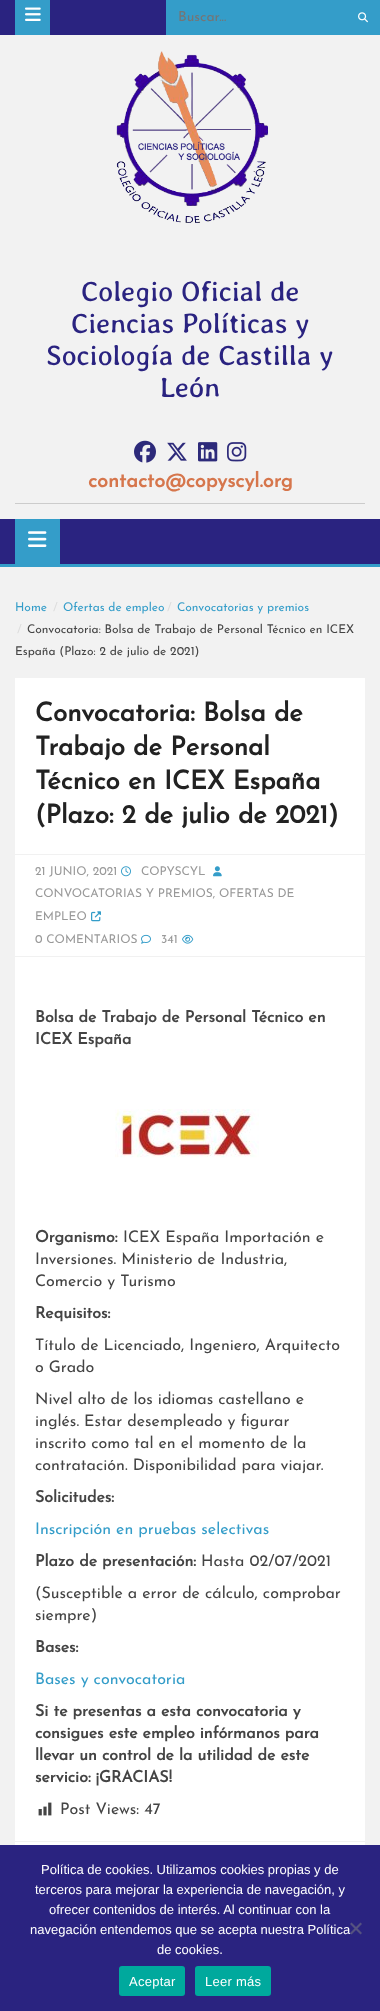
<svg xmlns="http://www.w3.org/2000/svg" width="380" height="2011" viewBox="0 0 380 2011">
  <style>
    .t1 { font: 100 14px Josefin Sans; fill: #757575; }
    .t2 { font: 28px Averia Libre; fill: #2a2380; }
    .t3 { font: bold 20px Josefin Sans; fill: #d6764c; }
    .t4 { font: 100 12px Josefin Sans; fill: #349dc9; }
    .t5 { font: 100 12px Josefin Sans; fill: #ddd; }
    .t6 { font: 100 12px Josefin Sans; fill: #444; }
    .t7 { font: bold 26px Josefin Sans; fill: #222; }
    .t8 { font: 100 12px Josefin Sans; fill: #999; }
    .t9 { font: bold 16px Josefin Sans; fill: #444; }
    .t10 { font: 100 16px Josefin Sans; fill: #444; }
    .t11 { font: 100 16px Josefin Sans; fill: #349dc9; }
    .t12 { font: 13px Liberation Sans; fill: #fff; }
    .t13 { font: 13px Liberation Sans; letter-spacing: 0.25px; fill: #fff; }
  </style>
  <rect width="100%" height="100%" fill="#f2f2f2"/>
  <rect x="0" y="0" width="166" height="35" fill="#2a2380"/>
  <rect x="15" y="0" width="35" height="35" fill="#349dc9"/>
  <image x="25" y="7" width="16" height="14" href="images/1.png"/>
  <rect x="166" y="0" width="214" height="35" fill="#349dc9"/>
  <text x="178" y="21" class="t1">Buscar...</text>
  <image x="358" y="12" width="10" height="11" href="images/2.png"/>
  <image x="116" y="51" width="153" height="172" href="images/3.png"/>
  <rect x="15" y="503" width="350" height="1" fill="#ccc"/>
  <text x="81" y="301" class="t2">Colegio Oficial de</text>
  <text x="71" y="333" class="t2">Ciencias Políticas y</text>
  <text x="46" y="365" class="t2">Sociología de Castilla y</text>
  <text x="160" y="397" class="t2">León</text>
  <image x="134" y="440" width="22" height="23" href="images/4.png"/>
  <image x="167" y="442" width="20" height="19" href="images/5.png"/>
  <image x="198" y="442" width="20" height="20" href="images/6.png"/>
  <image x="227" y="442" width="20" height="20" href="images/7.png"/>
  <text x="88" y="487" class="t3">contacto@copyscyl.org</text>
  <rect x="0" y="519" width="380" height="45" fill="#2a2380"/>
  <rect x="15" y="519" width="45" height="45" fill="#349dc9"/>
  <image x="28" y="531" width="19" height="16" href="images/8.png"/>
  <rect x="0" y="564" width="380" height="3" fill="#349dc9"/>
  <text x="15" y="611" class="t4">Home</text>
  <text x="53" y="611" class="t5">/</text>
  <text x="63" y="611" class="t4">Ofertas de empleo</text>
  <text x="167" y="611" class="t5">/</text>
  <text x="177" y="611" class="t4">Convocatorias y premios</text>
  <text x="17" y="633" class="t5">/</text>
  <text x="27" y="633" class="t6">Convocatoria: Bolsa de Trabajo de Personal Técnico en ICEX</text>
  <text x="15" y="655" class="t6">España (Plazo: 2 de julio de 2021)</text>
  <rect x="15" y="678" width="350" height="1167" fill="#fff"/>
  <text x="35" y="721" class="t7">Convocatoria: Bolsa de</text>
  <text x="35" y="755" class="t7">Trabajo de Personal</text>
  <text x="35" y="789" class="t7">Técnico en ICEX España</text>
  <text x="35" y="823" class="t7">(Plazo: 2 de julio de 2021)</text>
  <rect x="15" y="854" width="350" height="1" fill="#f1f1f1"/>
  <rect x="15" y="956" width="350" height="1" fill="#f1f1f1"/>
  <text x="35" y="875" class="t8">21 JUNIO, 2021</text>
  <image x="121" y="866" width="10" height="11" href="images/9.png"/>
  <text x="141" y="875" class="t8">COPYSCYL</text>
  <image x="213" y="866" width="9" height="11" href="images/10.png"/>
  <text x="35" y="897" class="t8">CONVOCATORIAS Y PREMIOS, OFERTAS DE</text>
  <text x="35" y="920" class="t8">EMPLEO</text>
  <image x="91" y="911" width="10" height="11" href="images/11.png"/>
  <text x="35" y="943" class="t8">0 COMENTARIOS</text>
  <image x="141" y="934" width="10" height="10" href="images/12.png"/>
  <text x="161" y="943" class="t8">341</text>
  <image x="182" y="934" width="12" height="10" href="images/13.png"/>
  <text x="35" y="1022" class="t9">Bolsa de Trabajo de Personal Técnico en</text>
  <text x="35" y="1044" class="t9">ICEX España</text>
  <image x="115" y="1109" width="144" height="49" href="images/14.png"/>
  <text x="35" y="1242" class="t9">Organismo:</text>
  <text x="123" y="1242" class="t10">ICEX España Importación e</text>
  <text x="35" y="1264" class="t10">Inversiones. Ministerio de Industria,</text>
  <text x="35" y="1286" class="t10">Comercio y Turismo</text>
  <text x="35" y="1318" class="t9">Requisitos:</text>
  <text x="35" y="1350" class="t10">Título de Licenciado, Ingeniero, Arquitecto</text>
  <text x="35" y="1372" class="t10">o Grado</text>
  <text x="35" y="1404" class="t10">Nivel alto de los idiomas castellano e</text>
  <text x="35" y="1426" class="t10">inglés. Estar desempleado y figurar</text>
  <text x="35" y="1448" class="t10">inscrito como tal en el momento de la</text>
  <text x="35" y="1470" class="t10">contratación. Disponibilidad para viajar.</text>
  <text x="35" y="1502" class="t9">Solicitudes:</text>
  <text x="35" y="1534" class="t11">Inscripción en pruebas selectivas</text>
  <text x="35" y="1566" class="t9">Plazo de presentación:</text>
  <text x="201" y="1566" class="t10">Hasta 02/07/2021</text>
  <text x="35" y="1598" class="t10">(Susceptible a error de cálculo, comprobar</text>
  <text x="35" y="1620" class="t10">siempre)</text>
  <text x="35" y="1652" class="t9">Bases:</text>
  <text x="35" y="1684" class="t11">Bases y convocatoria</text>
  <text x="35" y="1716" class="t9">Si te presentas a esta convocatoria y</text>
  <text x="35" y="1738" class="t9">consigues este empleo infórmanos para</text>
  <text x="35" y="1760" class="t9">llevar un control de la utilidad de este</text>
  <text x="35" y="1782" class="t9">servicio: ¡GRACIAS!</text>
  <image x="38" y="1802" width="14" height="14" href="images/15.png"/>
  <text x="60" y="1814" class="t10">Post Views: 47</text>
  <rect x="15" y="1841" width="350" height="1" fill="#f1f1f1"/>
  <rect x="0" y="1845" width="380" height="166" fill="#2a2380"/>
  <text x="41" y="1874" class="t12">Política de cookies. Utilizamos cookies propias y de</text>
  <text x="35" y="1894" class="t12">terceros para mejorar la experiencia de navegación, y</text>
  <text x="49" y="1914" class="t12">ofrecer contenidos de interés. Al continuar con la</text>
  <text x="30" y="1934" class="t12">navegación entendemos que se acepta nuestra Política</text>
  <text x="157" y="1954" class="t12">de cookies.</text>
  <path d="M360.5 1922.5L362 1924L351.5 1934.5L350 1933Z" fill="#555280"/>
  <path d="M350 1924L351.5 1922.5L362 1933L360.5 1934.5Z" fill="#555280"/>
  <rect x="119" y="1966" width="66" height="30" rx="3" fill="#00a99d"/>
  <text x="129" y="1986" class="t13">Aceptar</text>
  <rect x="195" y="1966" width="76" height="30" rx="3" fill="#00a99d"/>
  <text x="205" y="1986" class="t13">Leer más</text>
</svg>
